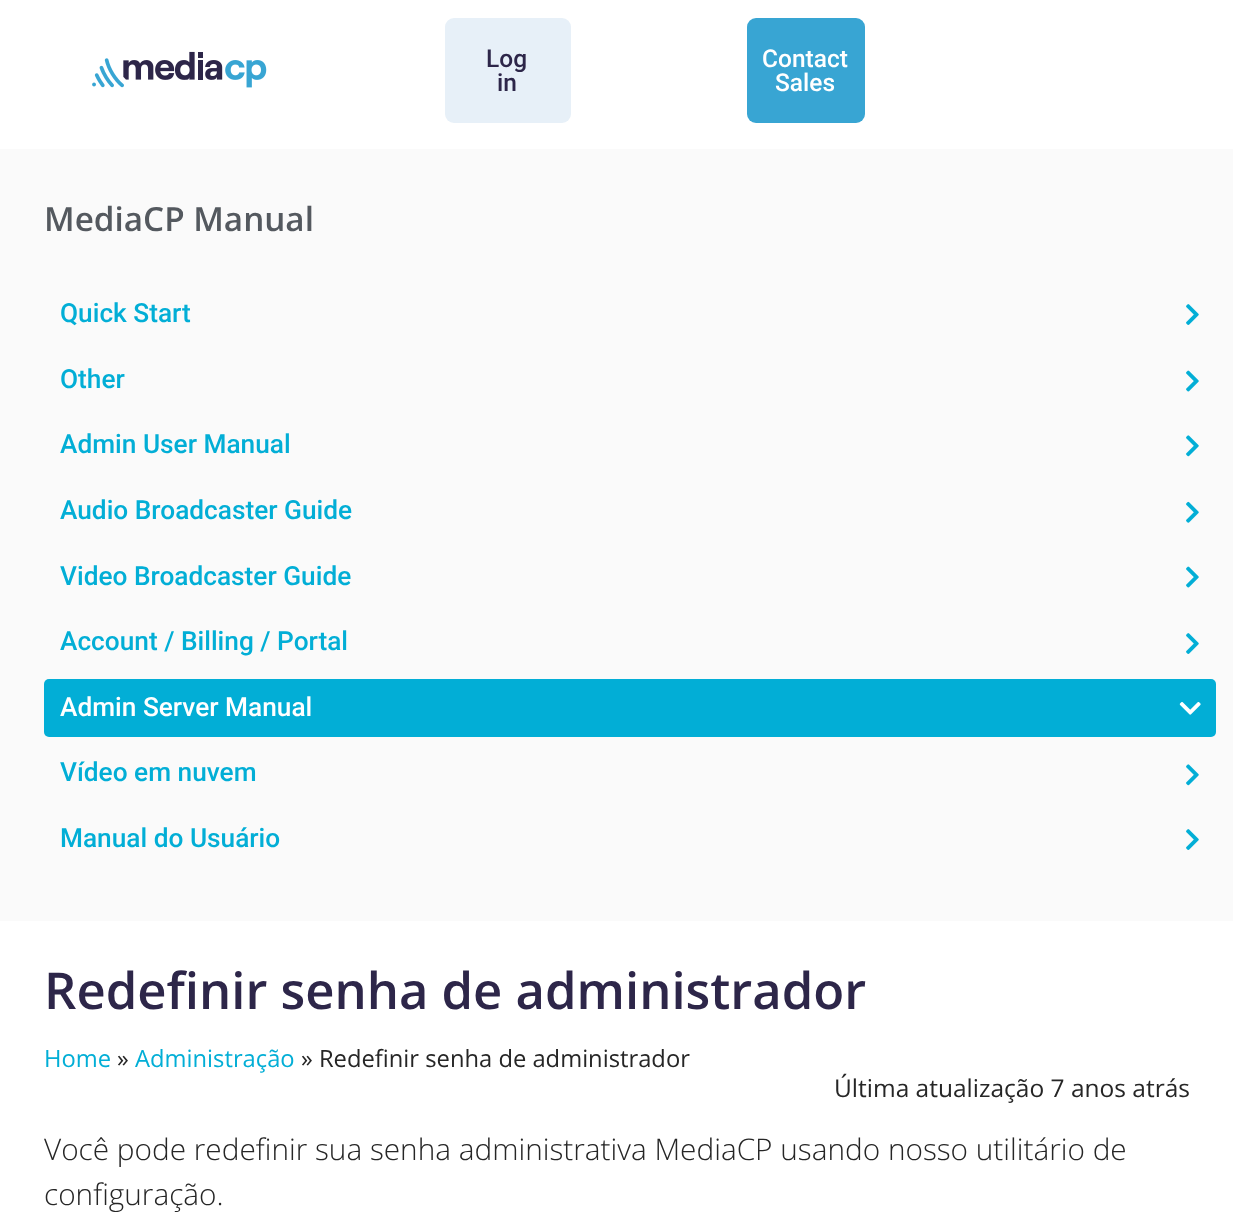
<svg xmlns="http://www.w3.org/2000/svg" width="1233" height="1212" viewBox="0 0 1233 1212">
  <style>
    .t1 { font: 500 24.5px Roboto; fill: #2d2649; }
    .t2 { font: 500 24.5px Roboto; fill: #fff; }
    .t3 { font: 600 33.25px Open Sans; fill: #54595f; }
    .t4 { font: 500 26.25px Roboto; fill: #02aed6; }
    .t5 { font: 500 26.25px Roboto; fill: #fff; }
    .t6 { font: 600 50.75px Open Sans; fill: #2d2649; }
    .t7 { font: 23.75px Open Sans; fill: #02aed6; }
    .t8 { font: 23.75px Open Sans; fill: #262626; }
    .t9 { font: 24.5px Open Sans; fill: #262626; }
    .t10 { font: 300 29.75px Open Sans; fill: #262626; }
  </style>
  <rect width="100%" height="100%" fill="#fff"/>
  <image x="92" y="51" width="175" height="37" href="images/1.png"/>
  <rect x="445" y="18" width="126" height="105" rx="9" fill="#e7f0f8"/>
  <text x="486" y="67" class="t1">Log</text>
  <text x="497" y="91" class="t1">in</text>
  <rect x="747" y="18" width="118" height="105" rx="9" fill="#38a5d3"/>
  <text x="762" y="67" class="t2">Contact</text>
  <text x="775" y="91" class="t2">Sales</text>
  <rect x="0" y="149" width="1233" height="772" fill="#fafafa"/>
  <text x="44" y="231" class="t3">MediaCP Manual</text>
  <text x="60" y="322" class="t4">Quick Start</text>
  <image x="1186" y="304" width="13" height="21" href="images/2.png"/>
  <text x="60" y="388" class="t4">Other</text>
  <image x="1186" y="370" width="13" height="22" href="images/3.png"/>
  <text x="60" y="453" class="t4">Admin User Manual</text>
  <image x="1186" y="435" width="13" height="22" href="images/4.png"/>
  <text x="60" y="519" class="t4">Audio Broadcaster Guide</text>
  <image x="1186" y="501" width="13" height="22" href="images/5.png"/>
  <text x="60" y="585" class="t4">Video Broadcaster Guide</text>
  <image x="1186" y="566" width="13" height="22" href="images/3.png"/>
  <text x="60" y="650" class="t4">Account / Billing / Portal</text>
  <image x="1186" y="633" width="13" height="21" href="images/2.png"/>
  <rect x="44" y="679" width="1172" height="58" rx="5" fill="#02aed6"/>
  <text x="60" y="716" class="t5">Admin Server Manual</text>
  <image x="1179" y="702" width="22" height="13" href="images/6.png"/>
  <text x="60" y="781" class="t4">Vídeo em nuvem</text>
  <image x="1186" y="764" width="13" height="22" href="images/4.png"/>
  <text x="60" y="847" class="t4">Manual do Usuário</text>
  <image x="1186" y="829" width="13" height="21" href="images/2.png"/>
  <text x="44" y="1009" class="t6">Redefinir senha de administrador</text>
  <text x="44" y="1067" class="t7">Home</text>
  <text x="117" y="1067" class="t8">»</text>
  <text x="135" y="1067" class="t7">Administração</text>
  <text x="301" y="1067" class="t8">» Redefinir senha de administrador</text>
  <text x="834" y="1097" class="t9">Última atualização 7 anos atrás</text>
  <text x="44" y="1160" class="t10">Você pode redefinir sua senha administrativa MediaCP usando nosso utilitário de</text>
  <text x="44" y="1205" class="t10">configuração.</text>
</svg>
